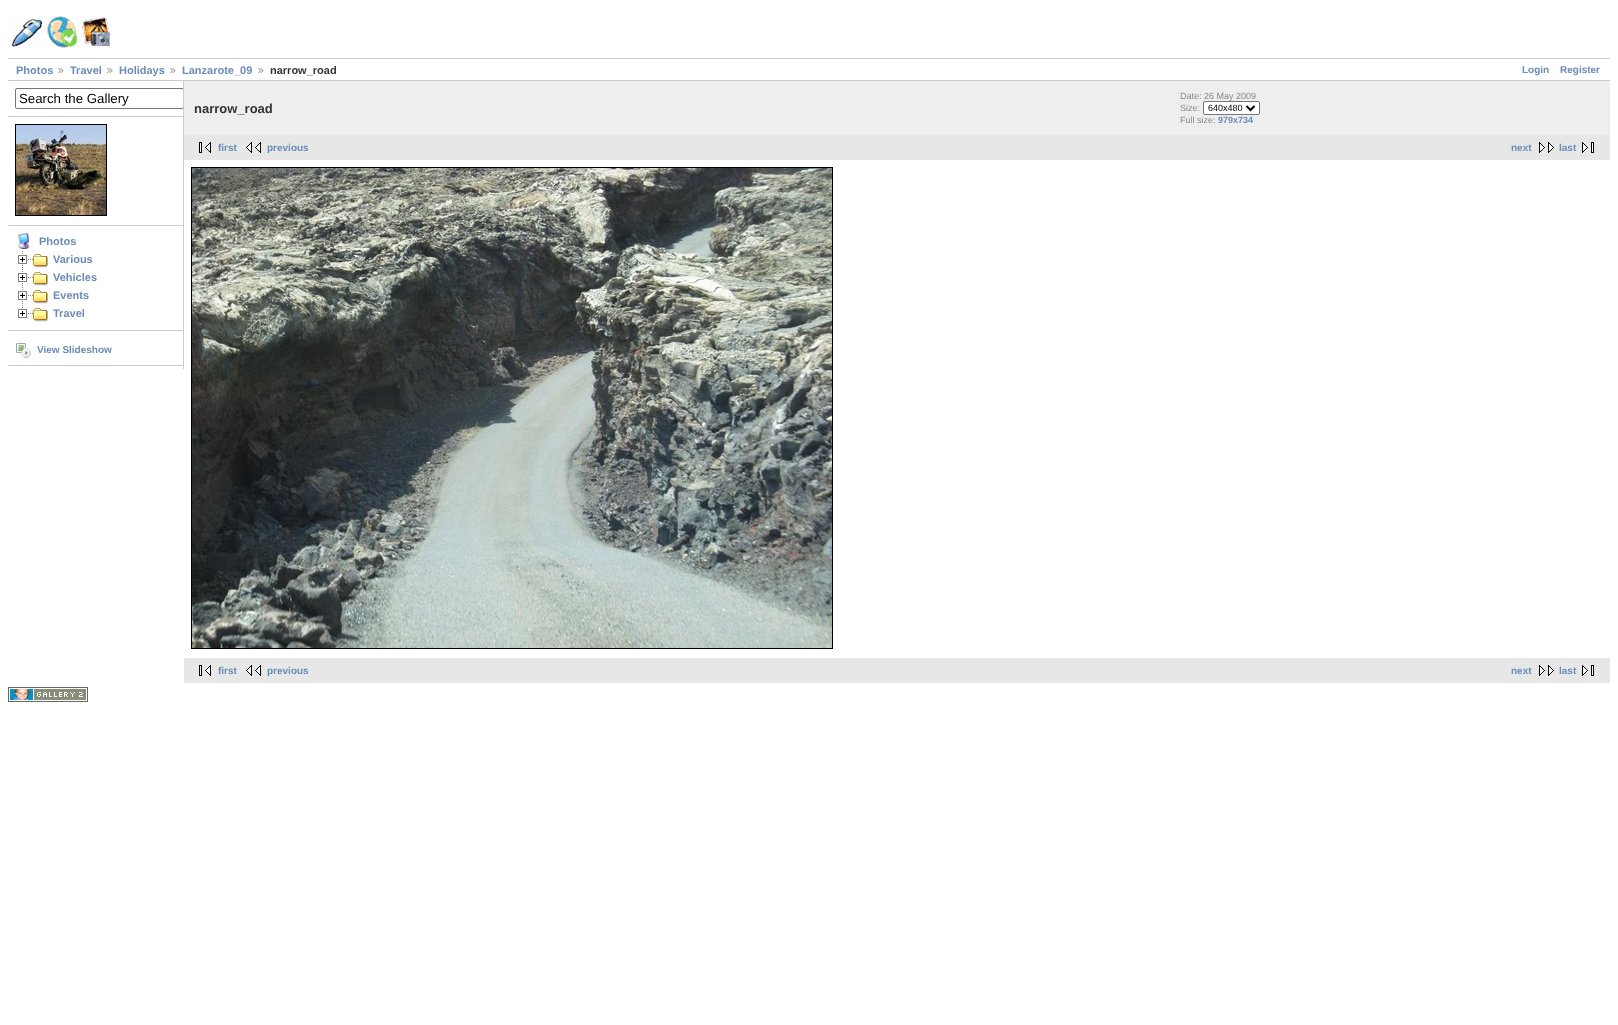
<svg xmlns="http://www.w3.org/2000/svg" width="1618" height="1025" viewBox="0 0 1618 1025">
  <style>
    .t1 { font: bold 11px Liberation Sans; fill: #6b8cb7; }
    .t2 { font: bold 11px Liberation Sans; fill: #333; }
    .t3 { font: bold 10px Liberation Sans; fill: #6b8cb7; }
    .t4 { font: 13.25px Liberation Sans; fill: #000; }
    .t5 { font: bold 13px Liberation Sans; fill: #333; }
    .t6 { font: 9px Liberation Sans; fill: #888; }
    .t7 { font: 9px Liberation Sans; fill: #000; }
    .t8 { font: bold 9px Liberation Sans; fill: #6b8cb7; }
  </style>
  <defs>
    <clipPath id="clip1"><rect x="8" y="81" width="175" height="288"/></clipPath>
  </defs>
  <rect width="100%" height="100%" fill="#fff"/>
  <image x="11" y="16" width="100" height="32" href="images/1.png"/>
  <rect x="8" y="58" width="1602" height="1" fill="#ccc"/>
  <rect x="8" y="80" width="1602" height="1" fill="#ccc"/>
  <text x="16" y="74" class="t1">Photos</text>
  <image x="58" y="68" width="6" height="5" href="images/2.png"/>
  <text x="70" y="74" class="t1">Travel</text>
  <image x="107" y="68" width="6" height="5" href="images/2.png"/>
  <text x="119" y="74" class="t1">Holidays</text>
  <image x="170" y="68" width="6" height="5" href="images/2.png"/>
  <text x="182" y="74" class="t1">Lanzarote_09</text>
  <image x="258" y="68" width="6" height="5" href="images/2.png"/>
  <text x="270" y="74" class="t2">narrow_road</text>
  <text x="1522" y="73" class="t3">Login</text>
  <text x="1560" y="73" class="t3">Register</text>
  <rect x="183" y="81" width="1" height="288" fill="#ccc"/>
  <rect x="8" y="116" width="175" height="1" fill="#ccc"/>
  <g clip-path="url(#clip1)">
    <rect x="15.5" y="88.5" width="168" height="20" rx="1.5" fill="none" stroke="#767676"/>
  </g>
  <text x="19" y="103" class="t4">Search the Gallery</text>
  <rect x="8" y="225" width="175" height="1" fill="#ccc"/>
  <rect x="15.5" y="124.5" width="91" height="91" fill="none" stroke="#000"/>
  <image x="16" y="125" width="90" height="90" href="images/3.png"/>
  <rect x="8" y="330" width="175" height="1" fill="#ccc"/>
  <image x="18" y="233" width="12" height="16" href="images/4.png"/>
  <text x="39" y="245" class="t1">Photos</text>
  <image x="18" y="251" width="15" height="17" href="images/5.png"/>
  <image x="33" y="254" width="15" height="14" href="images/6.png"/>
  <text x="53" y="263" class="t1">Various</text>
  <image x="18" y="269" width="15" height="17" href="images/5.png"/>
  <image x="33" y="272" width="15" height="14" href="images/6.png"/>
  <text x="53" y="281" class="t1">Vehicles</text>
  <image x="18" y="287" width="15" height="17" href="images/5.png"/>
  <image x="33" y="290" width="15" height="14" href="images/6.png"/>
  <text x="53" y="299" class="t1">Events</text>
  <image x="18" y="305" width="15" height="13" href="images/7.png"/>
  <image x="33" y="308" width="15" height="14" href="images/6.png"/>
  <text x="53" y="317" class="t1">Travel</text>
  <rect x="8" y="365" width="175" height="1" fill="#ccc"/>
  <image x="16" y="343" width="15" height="15" href="images/8.png"/>
  <text x="37" y="353" class="t3">View Slideshow</text>
  <rect x="184" y="81" width="1426" height="54" fill="#eee"/>
  <text x="194" y="113" class="t5">narrow_road</text>
  <text x="1180" y="99" class="t6">Date: 26 May 2009</text>
  <text x="1180" y="111" class="t6">Size:</text>
  <rect x="1203.5" y="101.5" width="56" height="13" rx="1.5" fill="#fff" stroke="#767676"/>
  <path d="M1246.5 106L1250.5 110L1254.5 106" fill="none" stroke="#000" stroke-width="2"/>
  <text x="1208" y="111" class="t7">640x480</text>
  <text x="1180" y="123" class="t6">Full size:</text>
  <text x="1218" y="123" class="t8">979x734</text>
  <rect x="184" y="135" width="1426" height="25" fill="#e7e7e7"/>
  <image x="199" y="142" width="12" height="11" href="images/9.png"/>
  <text x="218" y="151" class="t3">first</text>
  <image x="246" y="142" width="15" height="11" href="images/10.png"/>
  <text x="267" y="151" class="t3">previous</text>
  <text x="1511" y="151" class="t3">next</text>
  <image x="1539" y="142" width="15" height="11" href="images/11.png"/>
  <text x="1559" y="151" class="t3">last</text>
  <image x="1582" y="142" width="12" height="11" href="images/12.png"/>
  <rect x="191.5" y="167.5" width="641" height="481" fill="none" stroke="#000"/>
  <image x="192" y="168" width="640" height="480" href="images/13.png"/>
  <rect x="184" y="658" width="1426" height="25" fill="#e7e7e7"/>
  <image x="199" y="665" width="12" height="11" href="images/9.png"/>
  <text x="218" y="674" class="t3">first</text>
  <image x="246" y="665" width="15" height="11" href="images/10.png"/>
  <text x="267" y="674" class="t3">previous</text>
  <text x="1511" y="674" class="t3">next</text>
  <image x="1539" y="665" width="15" height="11" href="images/11.png"/>
  <text x="1559" y="674" class="t3">last</text>
  <image x="1582" y="665" width="12" height="11" href="images/12.png"/>
  <image x="8" y="687" width="80" height="15" href="images/14.png"/>
</svg>
